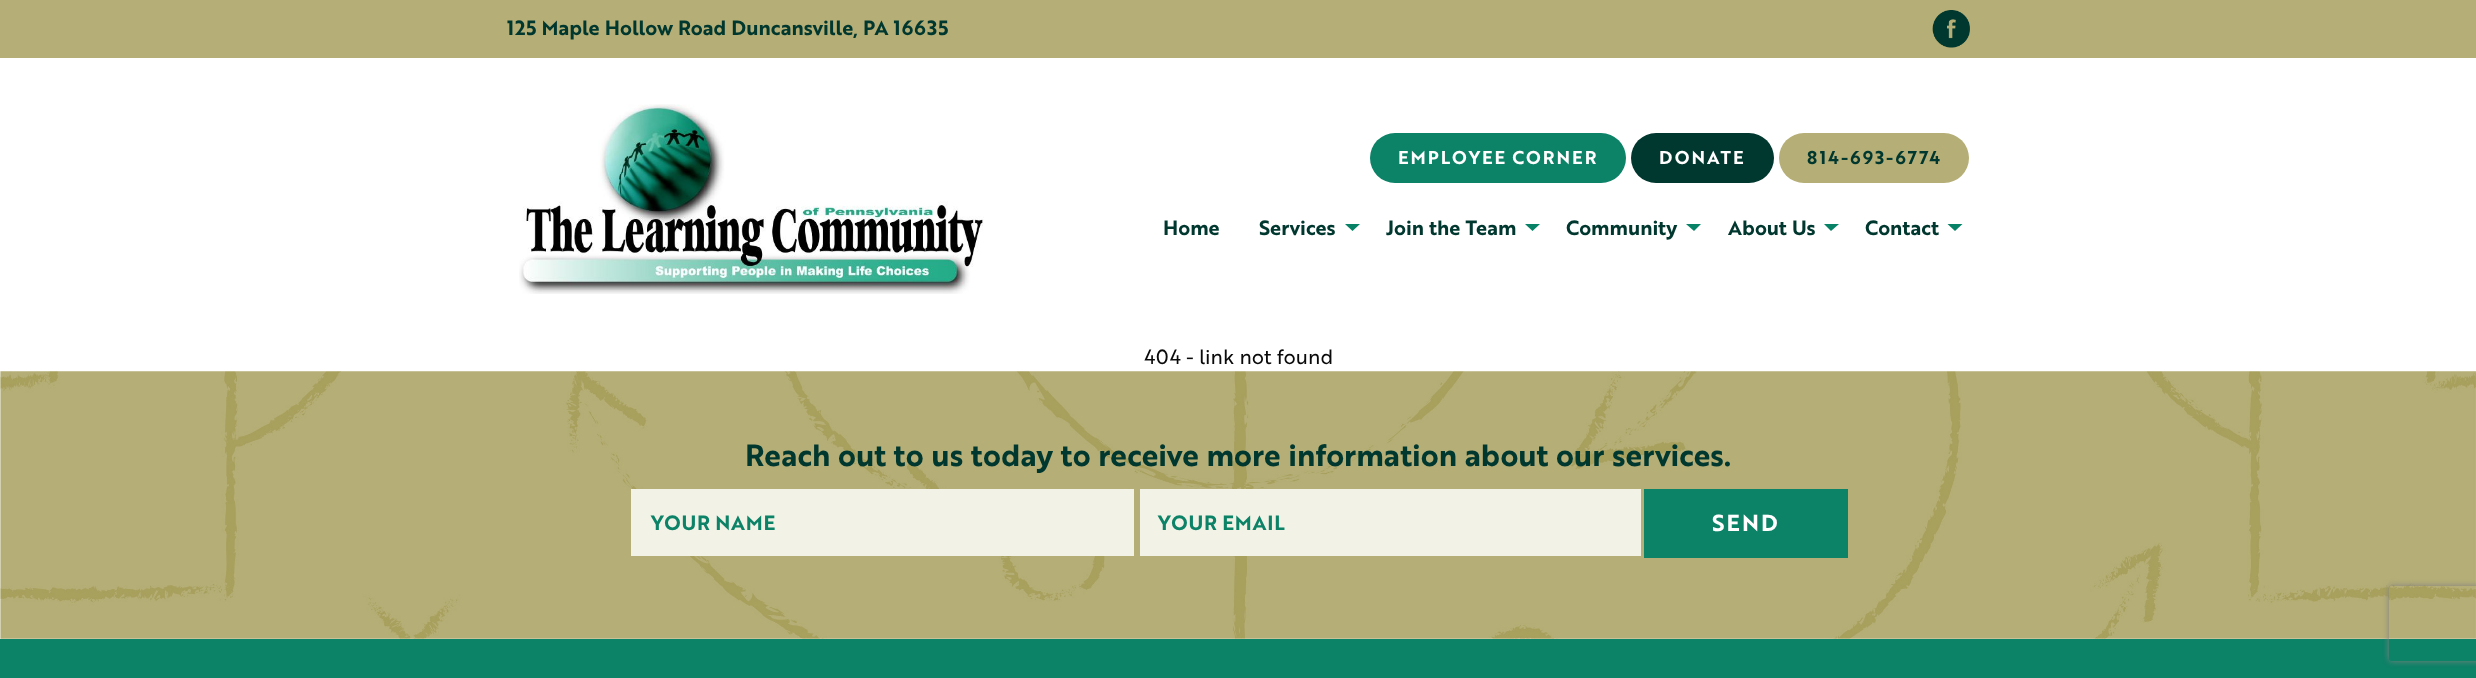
<svg xmlns="http://www.w3.org/2000/svg" width="2476" height="678" viewBox="0 0 2476 678">
  <style>
    .t1 { font: bold 20px 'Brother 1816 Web'; fill: #00372e; }
    .t2 { font: bold 18px 'Brother 1816 Web'; letter-spacing: 1.25px; fill: #fff; }
    .t3 { font: bold 18px 'Brother 1816 Web'; letter-spacing: 1.25px; fill: #00372e; }
    .t4 { font: 20px 'Brother 1816 Web'; fill: #0a0a0a; }
    .t5 { font: bold 30px 'Brother 1816 Web'; fill: #00372e; }
    .t6 { font: bold 20px 'Brother 1816 Web'; fill: #0c8267; }
    .t7 { font: bold 22.5px 'Brother 1816 Web'; letter-spacing: 1.25px; fill: #fff; }
  </style>
  <defs>
    <clipPath id="clip1"><path d="M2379 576H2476V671H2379ZM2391.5 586H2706.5C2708 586 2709 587 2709 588.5V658.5C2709 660 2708 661 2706.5 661H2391.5C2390 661 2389 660 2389 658.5V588.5C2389 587 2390 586 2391.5 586Z" clip-rule="evenodd"/></clipPath>
  </defs>
  <rect width="100%" height="100%" fill="#fff"/>
  <rect x="0" y="0" width="2476" height="58" fill="#b5ae76"/>
  <text x="507" y="35" class="t1">125 Maple Hollow Road Duncansville, PA 16635</text>
  <image x="1932" y="10" width="38" height="38" href="images/1.png"/>
  <image x="519" y="104" width="465" height="190" href="images/2.png"/>
  <rect x="1370" y="133" width="256" height="50" rx="25" fill="#0c8267"/>
  <text x="1398" y="164" class="t2">EMPLOYEE CORNER</text>
  <rect x="1631" y="133" width="143" height="50" rx="25" fill="#00372e"/>
  <text x="1659" y="164" class="t2">DONATE</text>
  <rect x="1779" y="133" width="190" height="50" rx="25" fill="#b5ae76"/>
  <text x="1807" y="164" class="t3">814-693-6774</text>
  <text x="1163" y="235" class="t1">Home</text>
  <text x="1259" y="235" class="t1">Services</text>
  <path d="M1345 224H1360L1352.5 231Z" fill="#078266"/>
  <text x="1386" y="235" class="t1">Join the Team</text>
  <path d="M1525 224H1540L1532.5 231Z" fill="#078266"/>
  <text x="1566" y="235" class="t1">Community</text>
  <path d="M1686 224H1701L1694 231Z" fill="#078266"/>
  <text x="1728" y="235" class="t1">About Us</text>
  <path d="M1824 224H1839L1831 231Z" fill="#078266"/>
  <text x="1865" y="235" class="t1">Contact</text>
  <path d="M1947.5 224H1962.5L1955 231Z" fill="#078266"/>
  <text x="1144" y="364" class="t4">404 - link not found</text>
  <image x="0" y="371" width="2476" height="268" href="images/3.png"/>
  <text x="745" y="466" class="t5">Reach out to us today to receive more information about our services.</text>
  <rect x="631" y="489" width="503" height="67" fill="#f2f2e7"/>
  <text x="651" y="530" class="t6">YOUR NAME</text>
  <rect x="1140" y="489" width="501" height="67" fill="#f2f2e7"/>
  <text x="1158" y="530" class="t6">YOUR EMAIL</text>
  <rect x="1644" y="489" width="204" height="69" fill="#0c8267"/>
  <text x="1712" y="531" class="t7">SEND</text>
  <rect x="0" y="639" width="2476" height="39" fill="#0c8267"/>
  <g clip-path="url(#clip1)">
    <rect x="2389" y="586" width="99" height="75" rx="2.5" fill="#808080" filter="blur(3px)"/>
  </g>
</svg>
